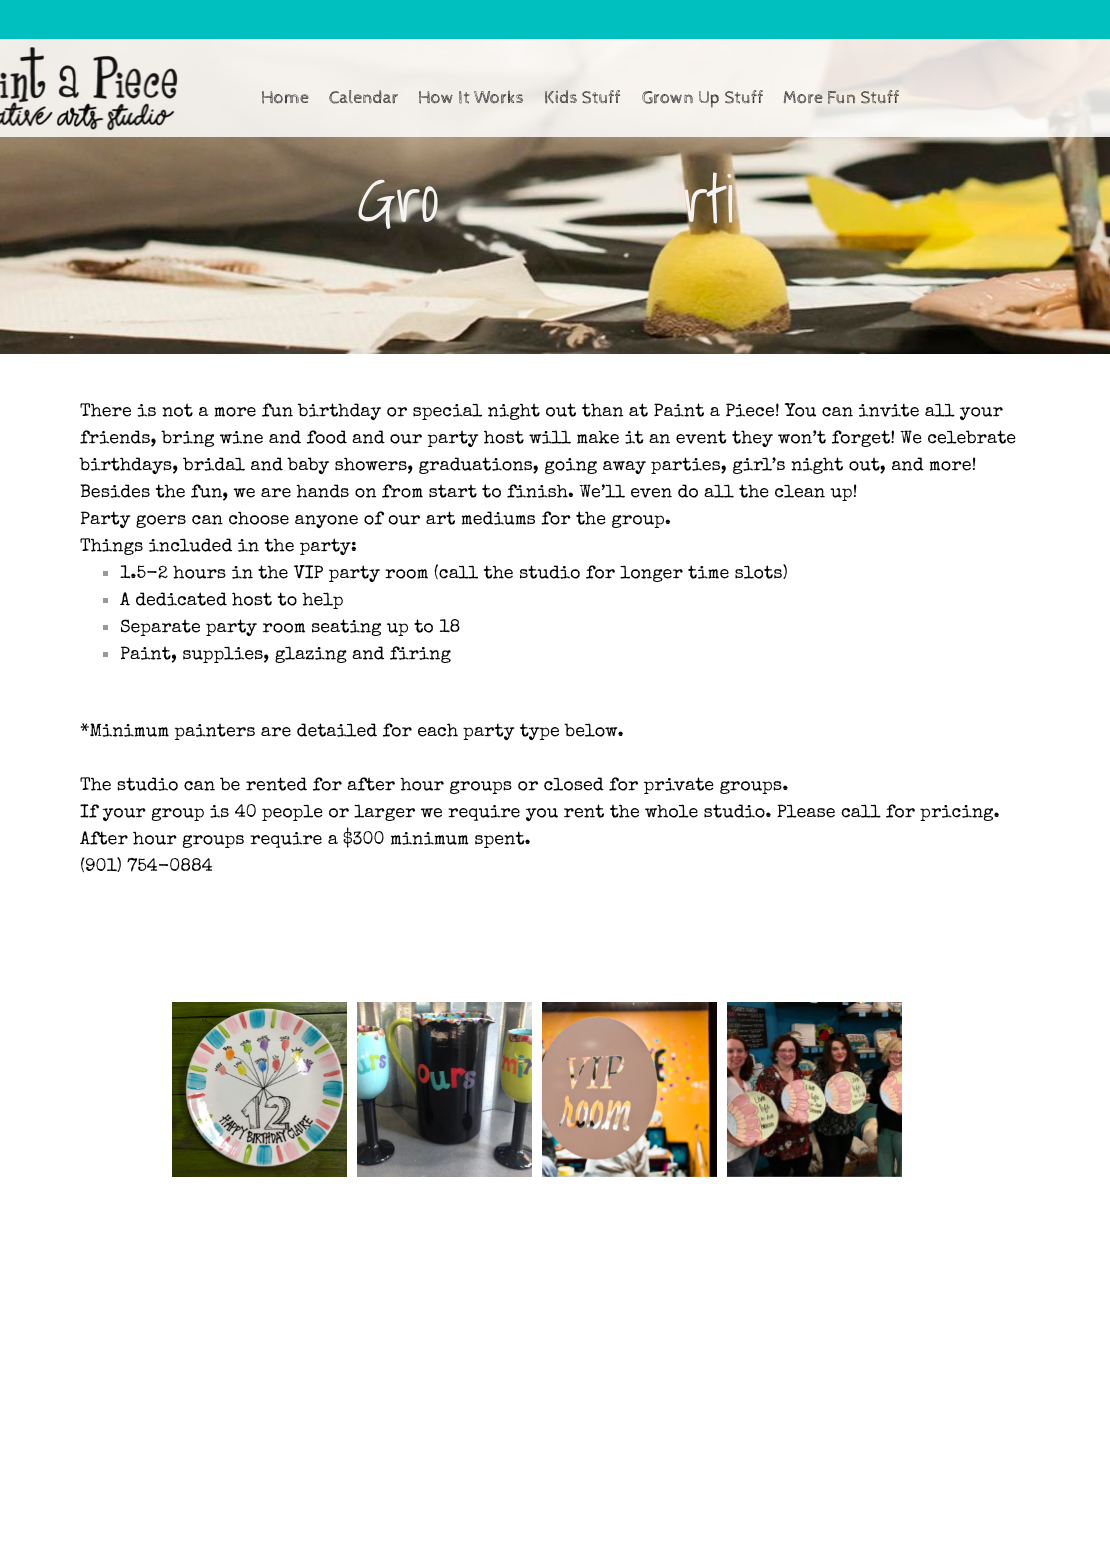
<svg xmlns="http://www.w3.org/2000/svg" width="1110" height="1553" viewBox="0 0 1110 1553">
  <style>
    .t1 { font: 18px Cabin Sketch; fill: #333; }
    .t2 { font: 300 65px Shadows Into Light; fill: #f5f4f3; }
    .t3 { font: 18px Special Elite; fill: #000; }
  </style>
  <rect width="100%" height="100%" fill="#fff"/>
  <rect x="0" y="0" width="1110" height="39" fill="#00bfbf"/>
  <image x="0" y="39" width="1110" height="315" href="images/1.png"/>
  <rect x="0" y="39" width="1110" height="98" fill="#ffffffd9"/>
  <image x="0" y="47" width="178" height="84" href="images/2.png"/>
  <text x="261" y="103" class="t1">Home</text>
  <text x="329" y="103" class="t1">Calendar</text>
  <text x="418" y="103" class="t1">How It Works</text>
  <text x="544" y="103" class="t1">Kids Stuff</text>
  <text x="642" y="103" class="t1">Grown Up Stuff</text>
  <text x="783" y="103" class="t1">More Fun Stuff</text>
  <text x="357" y="222" class="t2">Gro</text>
  <text x="683" y="222" class="t2">rti</text>
  <text x="80" y="416" class="t3">There is not a more fun birthday or special night out than at Paint a Piece! You can invite all your</text>
  <text x="80" y="443" class="t3">friends, bring wine and food and our party host will make it an event they won’t forget! We celebrate</text>
  <text x="80" y="470" class="t3">birthdays, bridal and baby showers, graduations, going away parties, girl’s night out, and more!</text>
  <text x="80" y="497" class="t3">Besides the fun, we are hands on from start to finish. We’ll even do all the clean up!</text>
  <text x="80" y="524" class="t3">Party goers can choose anyone of our art mediums for the group.</text>
  <text x="80" y="551" class="t3">Things included in the party:</text>
  <rect x="103" y="571" width="5" height="5" fill="#999"/>
  <text x="120" y="578" class="t3">1.5-2 hours in the VIP party room (call the studio for longer time slots)</text>
  <rect x="103" y="598" width="5" height="5" fill="#999"/>
  <text x="120" y="605" class="t3">A dedicated host to help</text>
  <rect x="103" y="625" width="5" height="5" fill="#999"/>
  <text x="120" y="632" class="t3">Separate party room seating up to 18</text>
  <rect x="103" y="652" width="5" height="5" fill="#999"/>
  <text x="120" y="659" class="t3">Paint, supplies, glazing and firing</text>
  <text x="80" y="736" class="t3">*Minimum painters are detailed for each party type below.</text>
  <text x="80" y="790" class="t3">The studio can be rented for after hour groups or closed for private groups.</text>
  <text x="80" y="817" class="t3">If your group is 40 people or larger we require you rent the whole studio. Please call for pricing.</text>
  <text x="80" y="844" class="t3">After hour groups require a $300 minimum spent.</text>
  <text x="80" y="871" class="t3">(901) 754-0884</text>
  <image x="172" y="1002" width="175" height="175" href="images/3.png"/>
  <image x="357" y="1002" width="175" height="175" href="images/4.png"/>
  <image x="542" y="1002" width="175" height="175" href="images/5.png"/>
  <image x="727" y="1002" width="175" height="175" href="images/6.png"/>
</svg>
